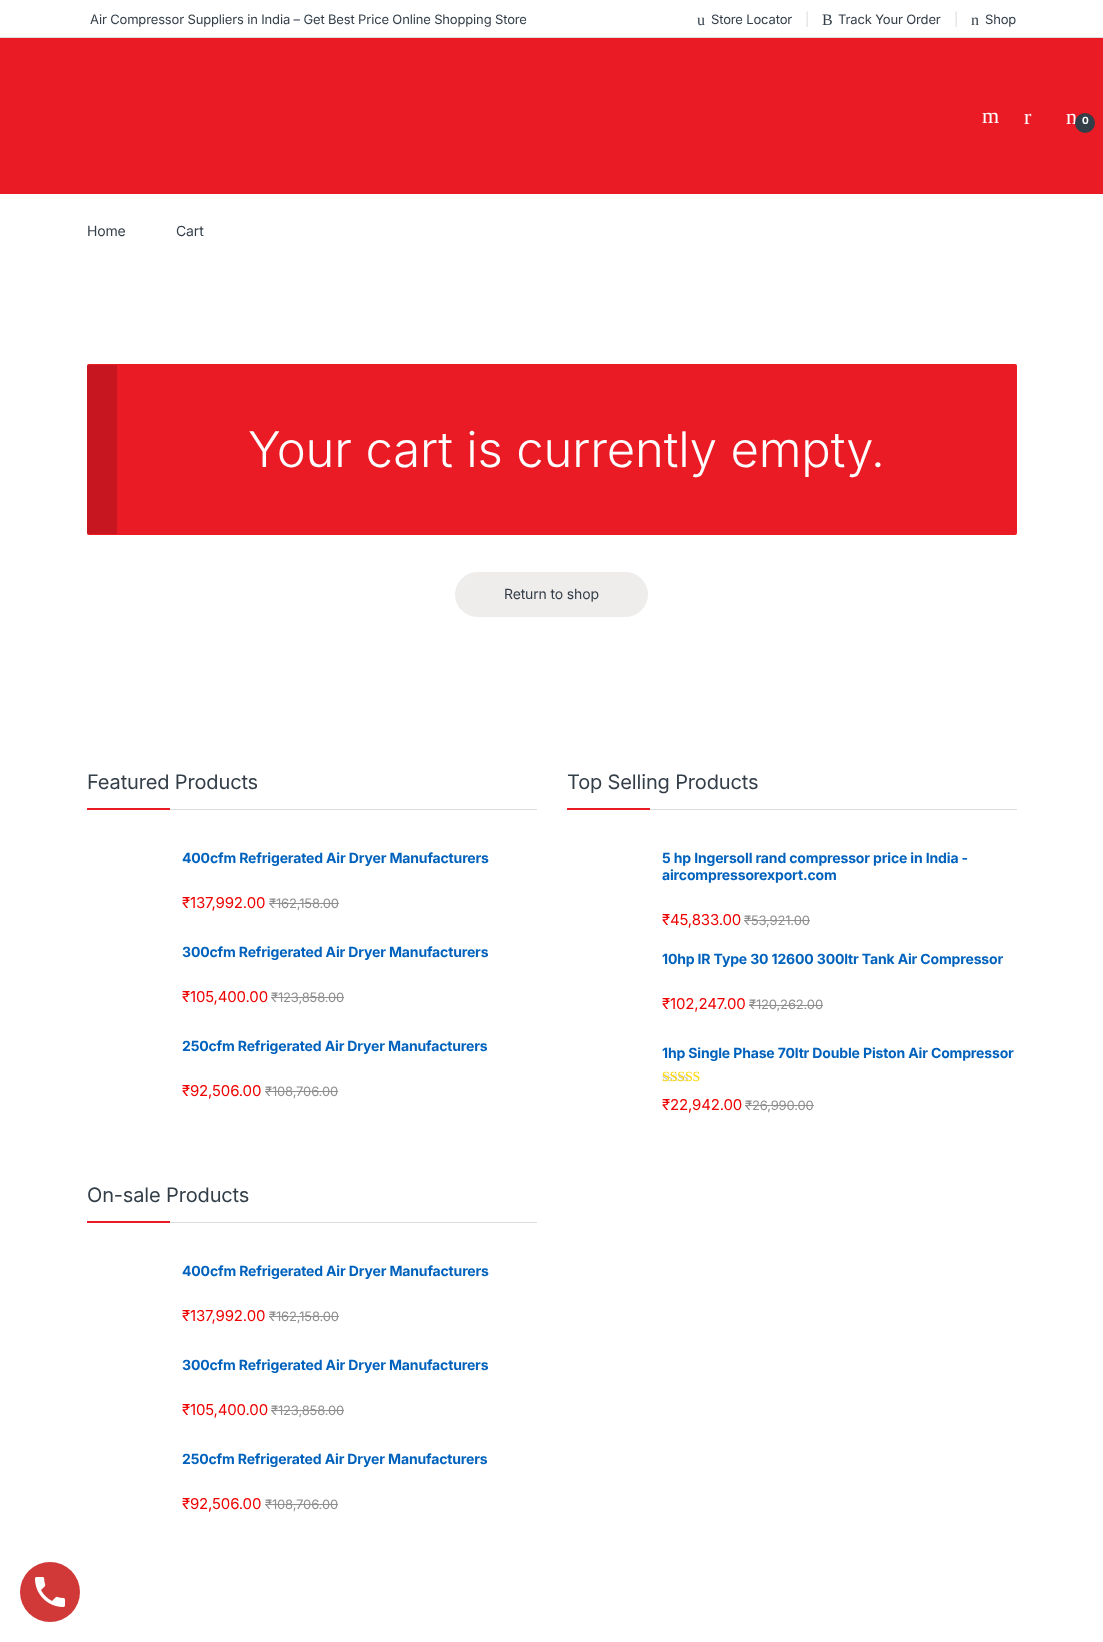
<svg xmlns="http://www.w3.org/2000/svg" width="1103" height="1642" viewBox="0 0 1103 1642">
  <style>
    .t1 { font: 13px Inter; letter-spacing: -0.15px; fill: #333e48; }
    .t2 { font: 16px Liberation Serif; letter-spacing: -0.15px; fill: #333e48; }
    .t3 { font: 13px Inter; letter-spacing: -0.15px; fill: #ddd; }
    .t4 { font: 22px Liberation Serif; letter-spacing: -0.15px; fill: #fff; }
    .t5 { font: bold 10px Inter; letter-spacing: -0.15px; fill: #fff; }
    .t6 { font: 14px Inter; letter-spacing: -0.15px; fill: #333e48; }
    .t7 { font: 300 49px Inter; letter-spacing: -0.15px; fill: #fff; }
    .t8 { font: 20px Inter; letter-spacing: -0.15px; fill: #333e48; }
    .t9 { font: bold 14px Inter; letter-spacing: -0.15px; fill: #0062bd; }
    .t10 { font: 15px Inter; letter-spacing: -0.15px; fill: #e00; }
    .t11 { font: 13px Inter; letter-spacing: -0.15px; fill: #8f8f8f; }
    .t12 { font: 14px Liberation Serif; letter-spacing: -0.15px; fill: #ccc; }
    .t13 { font: 14px Liberation Serif; letter-spacing: -0.15px; fill: #fed700; }
  </style>
  <rect width="100%" height="100%" fill="#fff"/>
  <rect x="0" y="37" width="1103" height="1" fill="#ddd"/>
  <text x="90" y="24" class="t1">Air Compressor Suppliers in India – Get Best Price Online Shopping Store</text>
  <text x="697" y="25" class="t2">u</text>
  <text x="711" y="24" class="t1">Store Locator</text>
  <text x="805" y="24" class="t3">|</text>
  <text x="822" y="25" class="t2">B</text>
  <text x="838" y="24" class="t1">Track Your Order</text>
  <text x="954" y="24" class="t3">|</text>
  <text x="971" y="25" class="t2">n</text>
  <text x="985" y="24" class="t1">Shop</text>
  <rect x="0" y="38" width="1103" height="156" fill="#ea1b25"/>
  <text x="982" y="123" class="t4">m</text>
  <text x="1024" y="124" class="t4">r</text>
  <text x="1066" y="124" class="t4">n</text>
  <circle cx="1085" cy="123" r="10" fill="#333e48"/>
  <text x="1082" y="124" class="t5">0</text>
  <text x="87" y="236" class="t6">Home</text>
  <text x="176" y="236" class="t6">Cart</text>
  <rect x="87" y="364" width="930" height="171" rx="2" fill="#ea1b25"/>
  <rect x="87" y="365" width="30" height="169" fill="#00000026"/>
  <text x="248" y="467" class="t7">Your cart is currently empty.</text>
  <rect x="455.5" y="572.5" width="192" height="44" rx="22" fill="#efecec" stroke="#efecec"/>
  <text x="504" y="599" class="t6">Return to shop</text>
  <rect x="170" y="809" width="367" height="1" fill="#ddd"/>
  <text x="87" y="789" class="t8">Featured Products</text>
  <rect x="87" y="808" width="83" height="2" fill="#ea1b25"/>
  <text x="182" y="863" class="t9">400cfm Refrigerated Air Dryer Manufacturers</text>
  <text x="182" y="908" class="t10">₹137,992.00</text>
  <text x="269" y="908" class="t11">₹162,158.00</text>
  <rect x="269" y="903" width="70" height="1" fill="#8f8f8f"/>
  <text x="182" y="957" class="t9">300cfm Refrigerated Air Dryer Manufacturers</text>
  <text x="182" y="1002" class="t10">₹105,400.00</text>
  <text x="271" y="1002" class="t11">₹123,858.00</text>
  <rect x="271" y="997" width="73" height="1" fill="#8f8f8f"/>
  <text x="182" y="1051" class="t9">250cfm Refrigerated Air Dryer Manufacturers</text>
  <text x="182" y="1096" class="t10">₹92,506.00</text>
  <text x="265" y="1096" class="t11">₹108,706.00</text>
  <rect x="265" y="1091" width="73" height="1" fill="#8f8f8f"/>
  <rect x="650" y="809" width="367" height="1" fill="#ddd"/>
  <text x="567" y="789" class="t8">Top Selling Products</text>
  <rect x="567" y="808" width="83" height="2" fill="#ea1b25"/>
  <text x="662" y="863" class="t9">5 hp Ingersoll rand compressor price in India -</text>
  <text x="662" y="880" class="t9">aircompressorexport.com</text>
  <text x="662" y="925" class="t10">₹45,833.00</text>
  <text x="744" y="925" class="t11">₹53,921.00</text>
  <rect x="744" y="920" width="66" height="1" fill="#8f8f8f"/>
  <text x="662" y="964" class="t9">10hp IR Type 30 12600 300ltr Tank Air Compressor</text>
  <text x="662" y="1009" class="t10">₹102,247.00</text>
  <text x="749" y="1009" class="t11">₹120,262.00</text>
  <rect x="749" y="1005" width="74" height="1" fill="#8f8f8f"/>
  <text x="662" y="1058" class="t9">1hp Single Phase 70ltr Double Piston Air Compressor</text>
  <text x="662" y="1081" class="t12">sssss</text>
  <text x="662" y="1081" class="t13">SSSSS</text>
  <text x="662" y="1110" class="t10">₹22,942.00</text>
  <text x="745" y="1110" class="t11">₹26,990.00</text>
  <rect x="745" y="1105" width="69" height="1" fill="#8f8f8f"/>
  <rect x="170" y="1222" width="367" height="1" fill="#ddd"/>
  <text x="87" y="1202" class="t8">On-sale Products</text>
  <rect x="87" y="1221" width="83" height="2" fill="#ea1b25"/>
  <text x="182" y="1276" class="t9">400cfm Refrigerated Air Dryer Manufacturers</text>
  <text x="182" y="1321" class="t10">₹137,992.00</text>
  <text x="269" y="1321" class="t11">₹162,158.00</text>
  <rect x="269" y="1316" width="70" height="1" fill="#8f8f8f"/>
  <text x="182" y="1370" class="t9">300cfm Refrigerated Air Dryer Manufacturers</text>
  <text x="182" y="1415" class="t10">₹105,400.00</text>
  <text x="271" y="1415" class="t11">₹123,858.00</text>
  <rect x="271" y="1410" width="73" height="1" fill="#8f8f8f"/>
  <text x="182" y="1464" class="t9">250cfm Refrigerated Air Dryer Manufacturers</text>
  <text x="182" y="1509" class="t10">₹92,506.00</text>
  <text x="265" y="1509" class="t11">₹108,706.00</text>
  <rect x="265" y="1504" width="73" height="1" fill="#8f8f8f"/>
  <circle cx="50" cy="1592" r="30" fill="#d13939"/>
  <image x="35" y="1577" width="30" height="30" href="images/1.png"/>
</svg>
